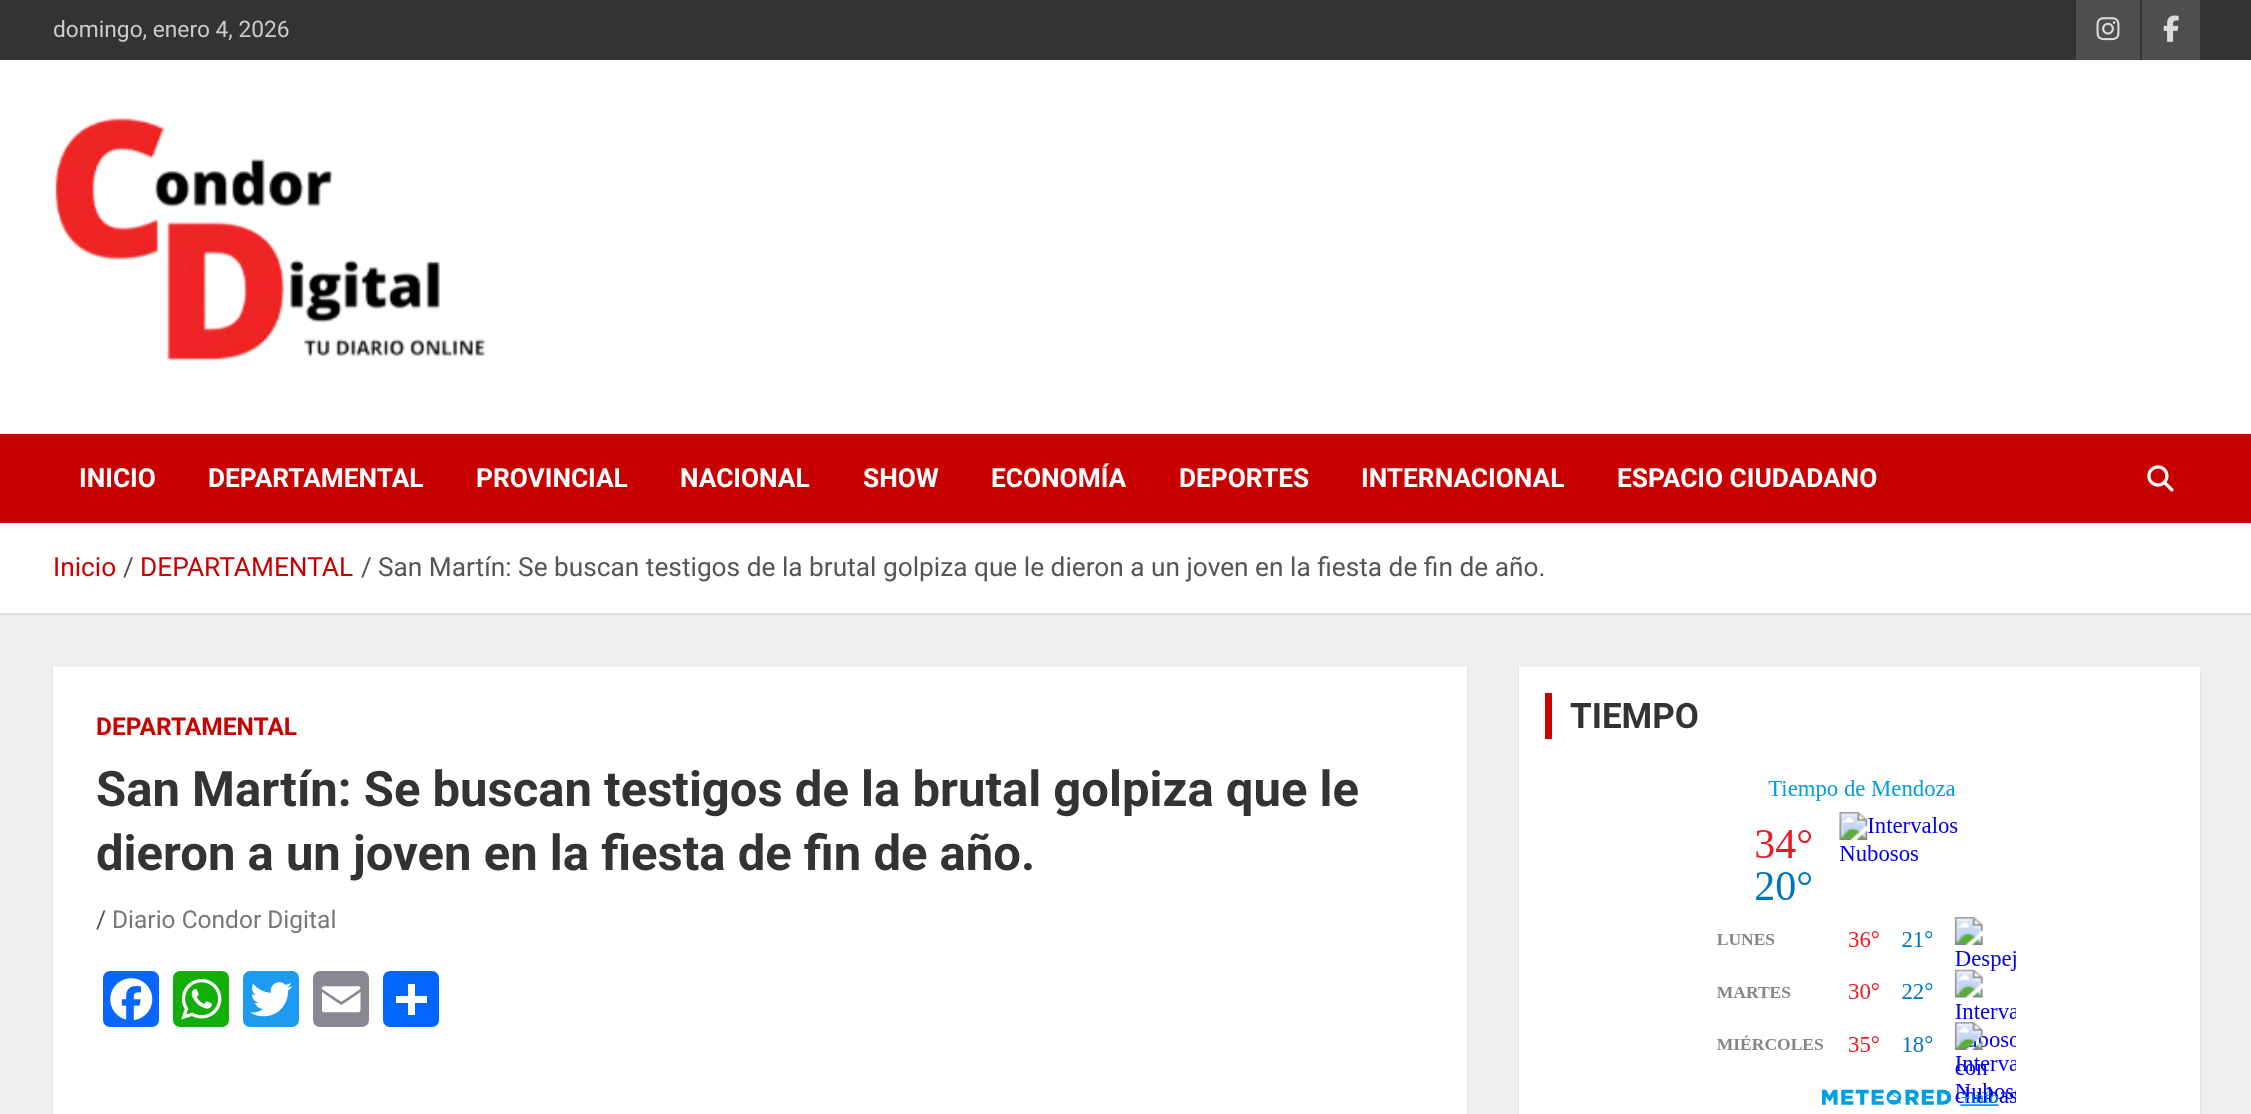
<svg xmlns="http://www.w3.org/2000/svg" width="2251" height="1114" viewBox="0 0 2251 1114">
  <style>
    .t1 { font: 22.75px Roboto; fill: #ccc; }
    .t2 { font: bold 26.25px Roboto; fill: #fff; }
    .t3 { font: 26.25px Roboto; fill: #c80000; }
    .t4 { font: 26.25px Roboto; fill: #555; }
    .t5 { font: bold 24.5px Roboto; fill: #c80000; }
    .t6 { font: bold 49px Roboto; fill: #333; }
    .t7 { font: 24.5px Roboto; fill: #555; }
    .t8 { font: 24.5px Roboto; fill: #777; }
    .t9 { font: bold 35px Roboto; fill: #333; }
  </style>
  <rect width="100%" height="100%" fill="#efefef"/>
  <rect x="0" y="614" width="2251" height="1" fill="#d7d7d7"/>
  <rect x="0" y="0" width="2251" height="60" fill="#333"/>
  <text x="53" y="37" class="t1">domingo, enero 4, 2026</text>
  <rect x="2076" y="0" width="64" height="60" fill="#4f4f4f"/>
  <image x="2096" y="17" width="24" height="24" href="images/1.png"/>
  <rect x="2142" y="0" width="58" height="60" fill="#4f4f4f"/>
  <image x="2163" y="15" width="16" height="27" href="images/2.png"/>
  <rect x="0" y="60" width="2251" height="374" fill="#fff"/>
  <image x="54" y="117" width="432" height="244" href="images/3.png"/>
  <rect x="0" y="434" width="2251" height="89" fill="#c80000"/>
  <text x="79" y="487" class="t2">INICIO</text>
  <text x="208" y="487" class="t2">DEPARTAMENTAL</text>
  <text x="476" y="487" class="t2">PROVINCIAL</text>
  <text x="680" y="487" class="t2">NACIONAL</text>
  <text x="863" y="487" class="t2">SHOW</text>
  <text x="991" y="487" class="t2">ECONOMÍA</text>
  <text x="1179" y="487" class="t2">DEPORTES</text>
  <text x="1361" y="487" class="t2">INTERNACIONAL</text>
  <text x="1617" y="487" class="t2">ESPACIO CIUDADANO</text>
  <image x="2147" y="465" width="27" height="27" href="images/4.png"/>
  <rect x="0" y="523" width="2251" height="90" fill="#fff"/>
  <rect x="0" y="613" width="2251" height="1" fill="#e6e6e6"/>
  <text x="53" y="576" class="t3">Inicio</text>
  <text x="123" y="576" class="t4">/</text>
  <text x="140" y="576" class="t3">DEPARTAMENTAL</text>
  <text x="361" y="576" class="t4">/</text>
  <text x="378" y="576" class="t4">San Martín: Se buscan testigos de la brutal golpiza que le dieron a un joven en la fiesta de fin de año.</text>
  <rect x="53" y="669" width="1414" height="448" fill="#0000001a" filter="blur(1px)"/>
  <rect x="53" y="667" width="1414" height="447" fill="#fff"/>
  <text x="96" y="735" class="t5">DEPARTAMENTAL</text>
  <text x="96" y="806" class="t6">San Martín: Se buscan testigos de la brutal golpiza que le</text>
  <text x="96" y="870" class="t6">dieron a un joven en la fiesta de fin de año.</text>
  <text x="96" y="928" class="t7">/</text>
  <text x="112" y="928" class="t8">Diario Condor Digital</text>
  <rect x="103" y="971" width="56" height="56" rx="7" fill="#0866ff"/>
  <image x="110" y="978" width="43" height="42" href="images/5.png"/>
  <rect x="173" y="971" width="56" height="56" rx="7" fill="#12af0a"/>
  <image x="181" y="979" width="41" height="41" href="images/6.png"/>
  <rect x="243" y="971" width="56" height="56" rx="7" fill="#1d9bf0"/>
  <image x="250" y="982" width="43" height="35" href="images/7.png"/>
  <rect x="313" y="971" width="56" height="56" rx="7" fill="#888990"/>
  <image x="322" y="986" width="39" height="27" href="images/8.png"/>
  <rect x="383" y="971" width="56" height="56" rx="7" fill="#0166ff"/>
  <rect x="408" y="984" width="7" height="31" fill="#fff"/>
  <rect x="396" y="996" width="31" height="7" fill="#fff"/>
  <rect x="1519" y="669" width="681" height="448" fill="#0000001a" filter="blur(1px)"/>
  <rect x="1519" y="667" width="681" height="447" fill="#fff"/>
  <rect x="1545" y="693" width="7" height="46" fill="#c80000"/>
  <text x="1570" y="728" class="t9">TIEMPO</text>
  <image x="1717" y="780" width="299" height="326" href="images/9.png"/>
</svg>
